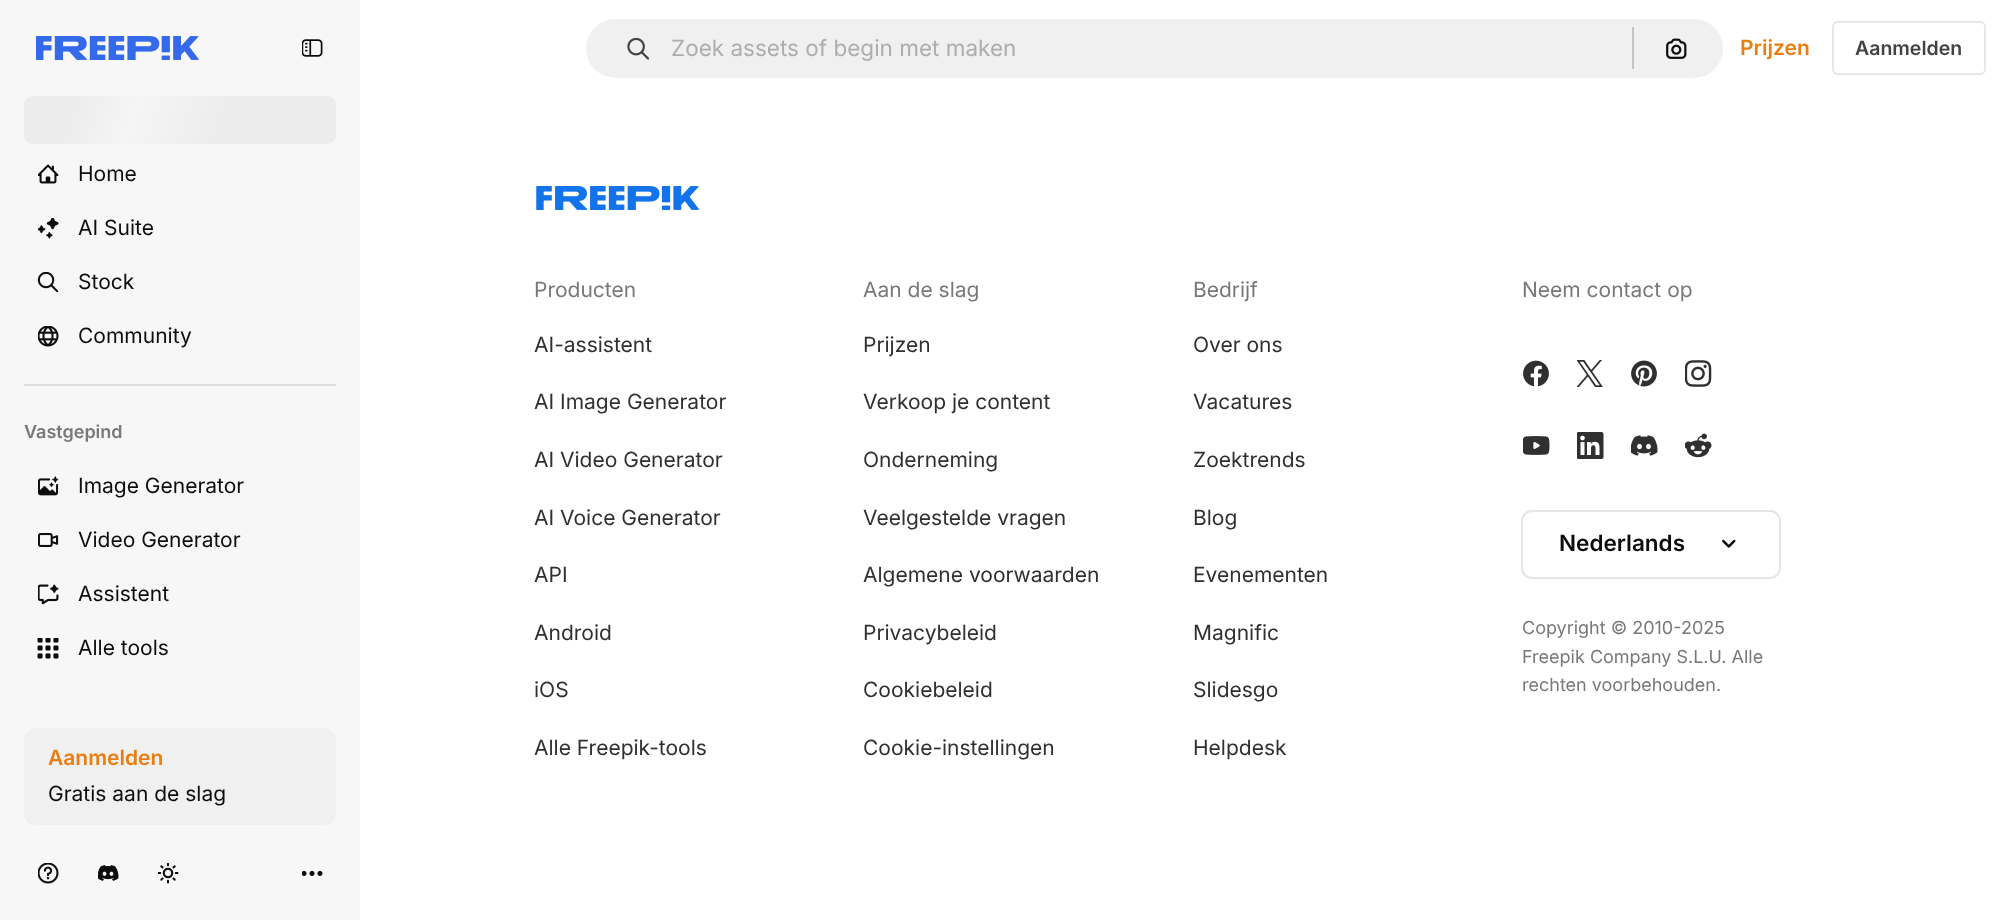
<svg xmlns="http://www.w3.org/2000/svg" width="2009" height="920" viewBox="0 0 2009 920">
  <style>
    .t1 { font: 21px Inter; fill: #0d0d0d; }
    .t2 { font: 600 18px Inter; fill: #787878; }
    .t3 { font: 600 21px Inter; fill: #ea7e11; }
    .t4 { font: 22.5px Inter; fill: #adadad; }
    .t5 { font: 600 19.5px Inter; fill: #424242; }
    .t6 { font: 21px Inter; fill: #787878; }
    .t7 { font: 21px Inter; fill: #303030; }
    .t8 { font: 600 22.5px Inter; fill: #0d0d0d; }
    .t9 { font: 18px Inter; fill: #787878; }
  </style>
  <defs>
    <linearGradient id="g1" gradientUnits="userSpaceOnUse" x1="53" y1="17" x2="619" y2="223"><stop offset="0.08" stop-color="#ececec"/><stop offset="0.18" stop-color="#f5f5f5"/><stop offset="0.33" stop-color="#ececec"/></linearGradient>
  </defs>
  <rect width="100%" height="100%" fill="#f7f7f7"/>
  <image x="36" y="36" width="163" height="24" href="images/1.png"/>
  <image x="302" y="39" width="21" height="18" href="images/2.png"/>
  <rect x="24" y="96" width="312" height="48" rx="9" fill="url(#g1)"/>
  <image x="38" y="164" width="21" height="20" href="images/3.png"/>
  <text x="78" y="181" class="t1">Home</text>
  <image x="38" y="218" width="21" height="21" href="images/4.png"/>
  <text x="78" y="235" class="t1">AI Suite</text>
  <image x="37" y="272" width="22" height="21" href="images/5.png"/>
  <text x="78" y="289" class="t1">Stock</text>
  <image x="38" y="326" width="21" height="21" href="images/6.png"/>
  <text x="78" y="343" class="t1">Community</text>
  <rect x="24" y="384" width="312" height="2" fill="#e0e0e0"/>
  <text x="24" y="438" class="t2">Vastgepind</text>
  <image x="38" y="476" width="21" height="20" href="images/7.png"/>
  <text x="78" y="493" class="t1">Image Generator</text>
  <image x="38" y="533" width="21" height="14" href="images/8.png"/>
  <text x="78" y="547" class="t1">Video Generator</text>
  <image x="38" y="584" width="21" height="21" href="images/9.png"/>
  <text x="78" y="601" class="t1">Assistent</text>
  <image x="37" y="638" width="22" height="21" href="images/10.png"/>
  <text x="78" y="655" class="t1">Alle tools</text>
  <rect x="24" y="728" width="312" height="97" rx="12" fill="#f0f0f0"/>
  <text x="48" y="765" class="t3">Aanmelden</text>
  <text x="48" y="801" class="t1">Gratis aan de slag</text>
  <image x="38" y="863" width="21" height="21" href="images/11.png"/>
  <image x="98" y="865" width="21" height="16" href="images/12.png"/>
  <image x="158" y="863" width="21" height="21" href="images/13.png"/>
  <image x="302" y="870" width="21" height="6" href="images/14.png"/>
  <rect x="360" y="0" width="1649" height="920" fill="#fff"/>
  <rect x="585" y="18" width="1139" height="61" rx="30.5" fill="#f0f0f0" stroke="#fff" stroke-width="2"/>
  <image x="627" y="38" width="23" height="22" href="images/15.png"/>
  <text x="671" y="56" class="t4">Zoek assets of begin met maken</text>
  <rect x="1632" y="27" width="2" height="42" fill="#c3c3c3"/>
  <image x="1666" y="38" width="21" height="21" href="images/16.png"/>
  <text x="1740" y="55" class="t3">Prijzen</text>
  <rect x="1833" y="22" width="152" height="52" rx="5" fill="none" stroke="#e7e7e7" stroke-width="2"/>
  <text x="1855" y="55" class="t5">Aanmelden</text>
  <image x="536" y="186" width="164" height="24" href="images/17.png"/>
  <text x="534" y="297" class="t6">Producten</text>
  <text x="534" y="352" class="t7">AI-assistent</text>
  <text x="534" y="409" class="t7">AI Image Generator</text>
  <text x="534" y="467" class="t7">AI Video Generator</text>
  <text x="534" y="525" class="t7">AI Voice Generator</text>
  <text x="534" y="582" class="t7">API</text>
  <text x="534" y="640" class="t7">Android</text>
  <text x="534" y="697" class="t7">iOS</text>
  <text x="534" y="755" class="t7">Alle Freepik-tools</text>
  <text x="863" y="297" class="t6">Aan de slag</text>
  <text x="863" y="352" class="t7">Prijzen</text>
  <text x="863" y="409" class="t7">Verkoop je content</text>
  <text x="863" y="467" class="t7">Onderneming</text>
  <text x="863" y="525" class="t7">Veelgestelde vragen</text>
  <text x="863" y="582" class="t7">Algemene voorwaarden</text>
  <text x="863" y="640" class="t7">Privacybeleid</text>
  <text x="863" y="697" class="t7">Cookiebeleid</text>
  <text x="863" y="755" class="t7">Cookie-instellingen</text>
  <text x="1193" y="297" class="t6">Bedrijf</text>
  <text x="1193" y="352" class="t7">Over ons</text>
  <text x="1193" y="409" class="t7">Vacatures</text>
  <text x="1193" y="467" class="t7">Zoektrends</text>
  <text x="1193" y="525" class="t7">Blog</text>
  <text x="1193" y="582" class="t7">Evenementen</text>
  <text x="1193" y="640" class="t7">Magnific</text>
  <text x="1193" y="697" class="t7">Slidesgo</text>
  <text x="1193" y="755" class="t7">Helpdesk</text>
  <text x="1522" y="297" class="t6">Neem contact op</text>
  <image x="1523" y="360" width="26" height="27" href="images/18.png"/>
  <image x="1577" y="360" width="26" height="27" href="images/19.png"/>
  <image x="1631" y="360" width="26" height="27" href="images/20.png"/>
  <image x="1685" y="360" width="27" height="27" href="images/21.png"/>
  <image x="1523" y="436" width="27" height="19" href="images/22.png"/>
  <image x="1577" y="432" width="27" height="27" href="images/23.png"/>
  <image x="1631" y="435" width="27" height="21" href="images/24.png"/>
  <image x="1685" y="433" width="27" height="25" href="images/25.png"/>
  <rect x="1522" y="511" width="258" height="67" rx="10" fill="none" stroke="#e6e6e6" stroke-width="2"/>
  <text x="1559" y="551" class="t8">Nederlands</text>
  <image x="1722" y="539" width="14" height="9" href="images/26.png"/>
  <text x="1522" y="634" class="t9">Copyright © 2010-</text>
  <text x="1681" y="634" class="t9">2025</text>
  <text x="1522" y="663" class="t9">Freepik Company S.L.U. Alle</text>
  <text x="1522" y="691" class="t9">rechten voorbehouden.</text>
</svg>
